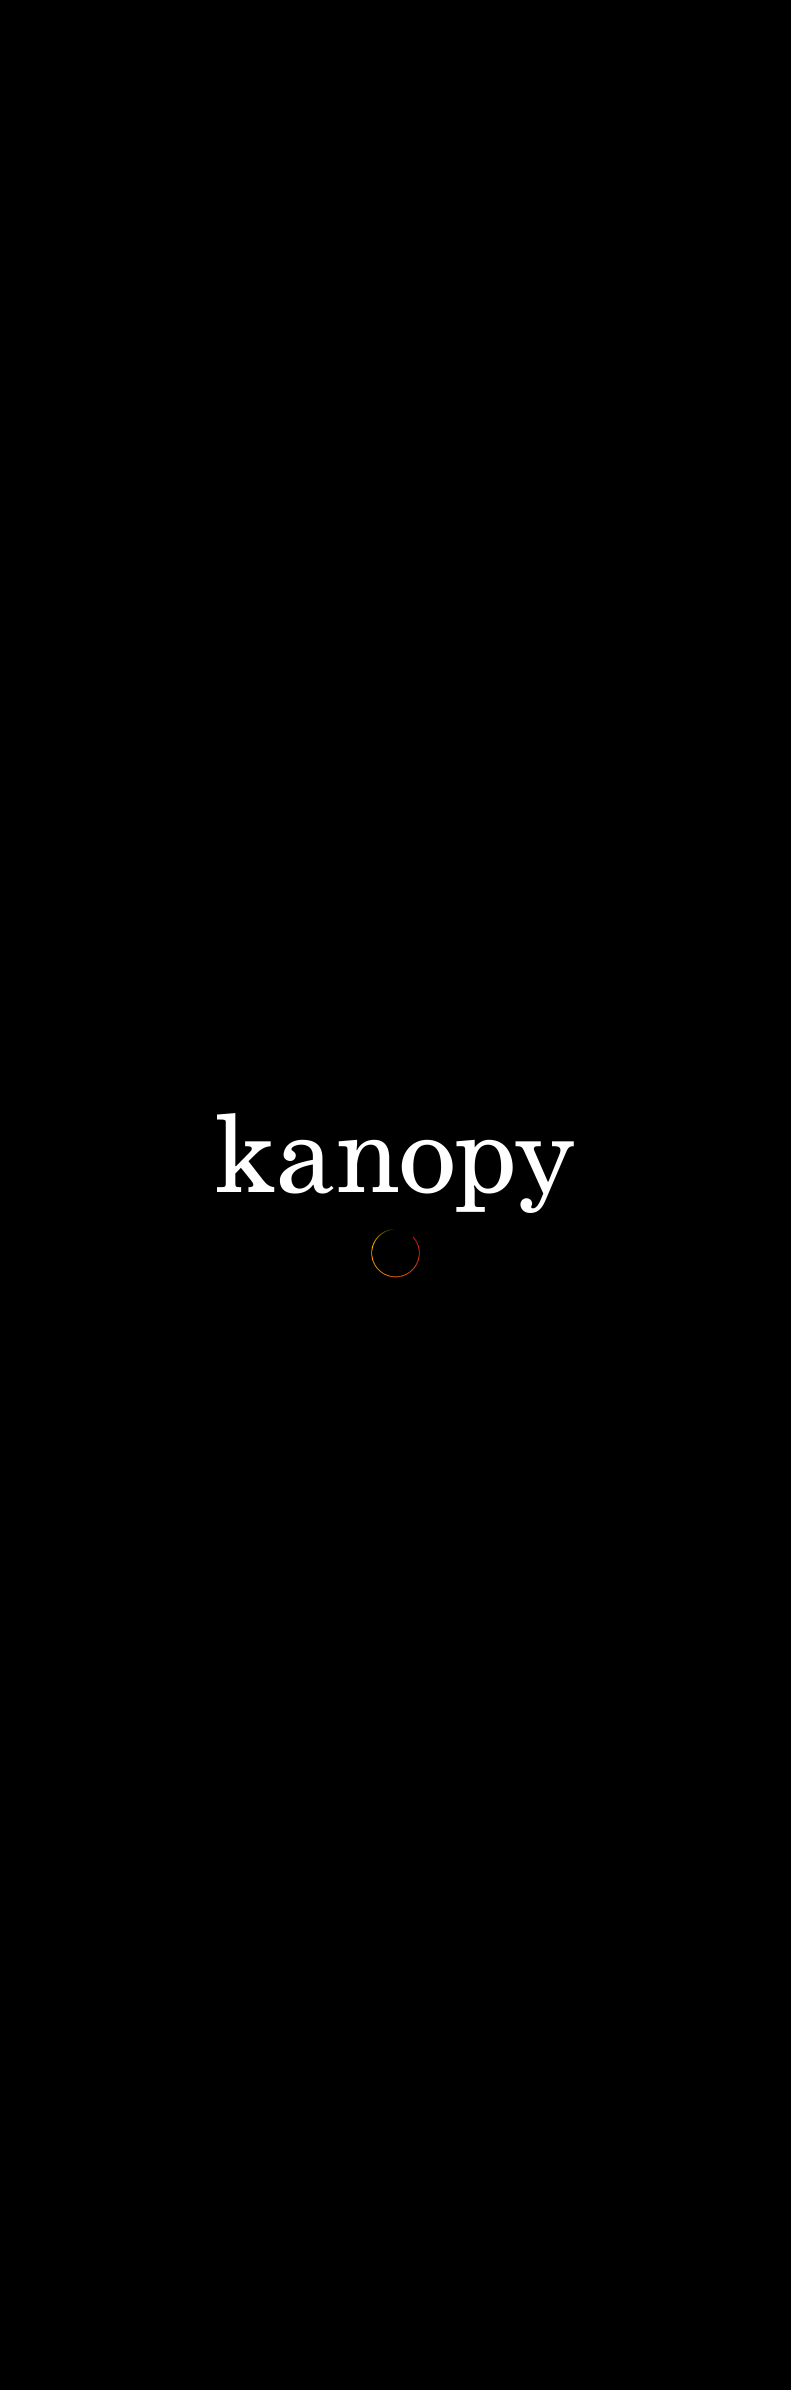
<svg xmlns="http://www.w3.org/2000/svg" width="791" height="2390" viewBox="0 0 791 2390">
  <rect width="100%" height="100%" fill="#000"/>
  <image x="217" y="1113" width="357" height="100" href="images/1.png"/>
  <image x="371" y="1229" width="49" height="49" href="images/2.png"/>
</svg>
